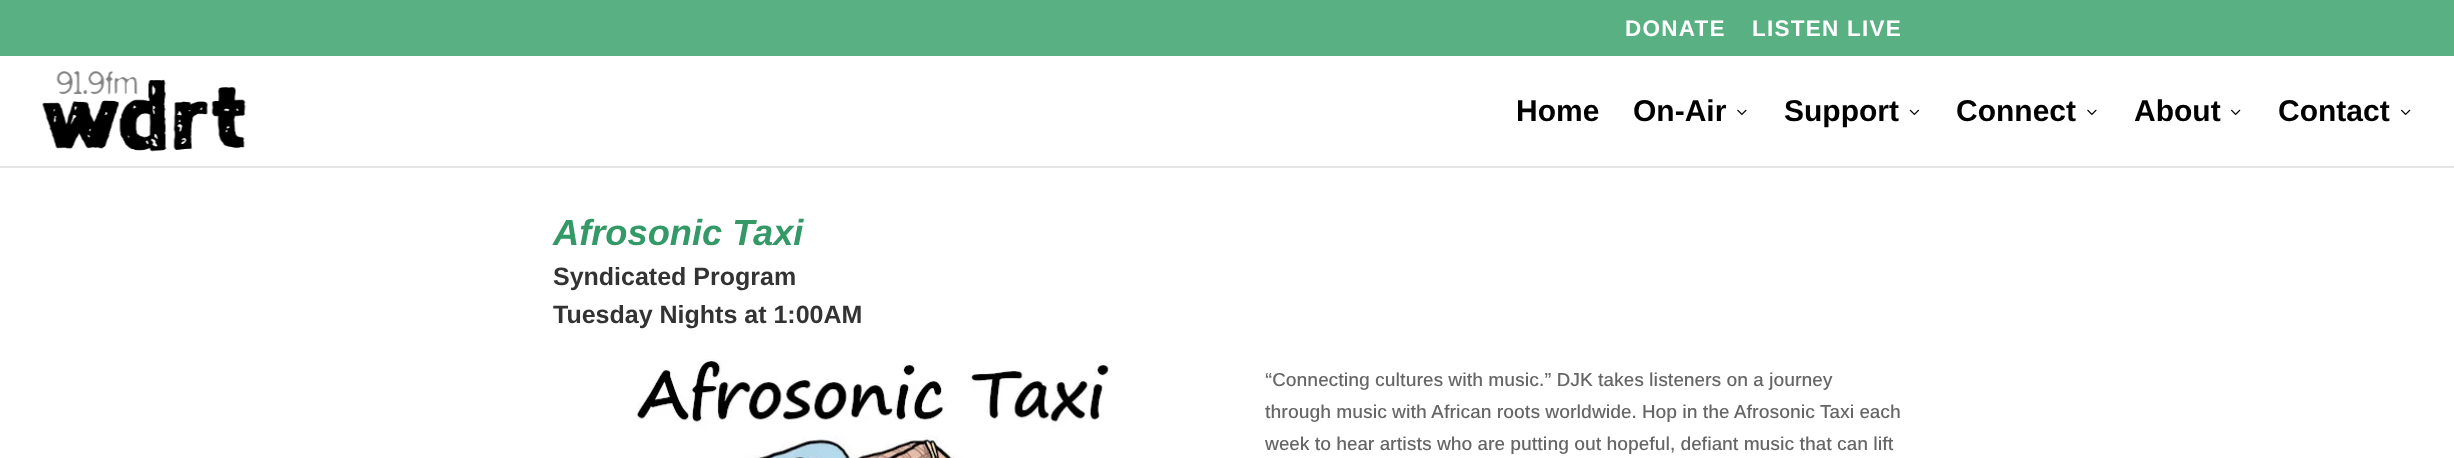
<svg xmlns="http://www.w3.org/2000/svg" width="2454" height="458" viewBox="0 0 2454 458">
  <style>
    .t1 { font: bold 22.5px Arimo; letter-spacing: 1.25px; fill: #fff; }
    .t2 { font: bold 30px Arimo; fill: #000; }
    .t3 { font: italic bold 36.25px Arimo; fill: #396; }
    .t4 { font: bold 25px Arimo; fill: #333; }
    .t5 { font: 500 18.75px Arimo; fill: #666; }
  </style>
  <rect width="100%" height="100%" fill="#fff"/>
  <rect x="0" y="0" width="2454" height="56" fill="#59b083"/>
  <text x="1625" y="36" class="t1">DONATE</text>
  <text x="1752" y="36" class="t1">LISTEN LIVE</text>
  <rect x="0" y="166" width="2454" height="2" fill="#e6e6e6"/>
  <image x="42" y="71" width="204" height="81" href="images/1.png"/>
  <text x="1516" y="121" class="t2">Home</text>
  <text x="1633" y="121" class="t2">On-Air</text>
  <image x="1737" y="109" width="10" height="6" href="images/2.png"/>
  <text x="1784" y="121" class="t2">Support</text>
  <image x="1909" y="109" width="10" height="6" href="images/3.png"/>
  <text x="1956" y="121" class="t2">Connect</text>
  <image x="2087" y="109" width="10" height="6" href="images/2.png"/>
  <text x="2134" y="121" class="t2">About</text>
  <image x="2231" y="109" width="10" height="6" href="images/4.png"/>
  <text x="2278" y="121" class="t2">Contact</text>
  <image x="2401" y="109" width="10" height="6" href="images/4.png"/>
  <text x="553" y="245" class="t3">Afrosonic Taxi</text>
  <text x="553" y="285" class="t4">Syndicated Program</text>
  <text x="553" y="323" class="t4">Tuesday Nights at 1:00AM</text>
  <image x="636" y="359" width="475" height="99" href="images/5.png"/>
  <text x="1265" y="386" class="t5">“Connecting cultures with music.” DJK takes listeners on a journey</text>
  <text x="1265" y="418" class="t5">through music with African roots worldwide. Hop in the Afrosonic Taxi each</text>
  <text x="1265" y="450" class="t5">week to hear artists who are putting out hopeful, defiant music that can lift</text>
</svg>
